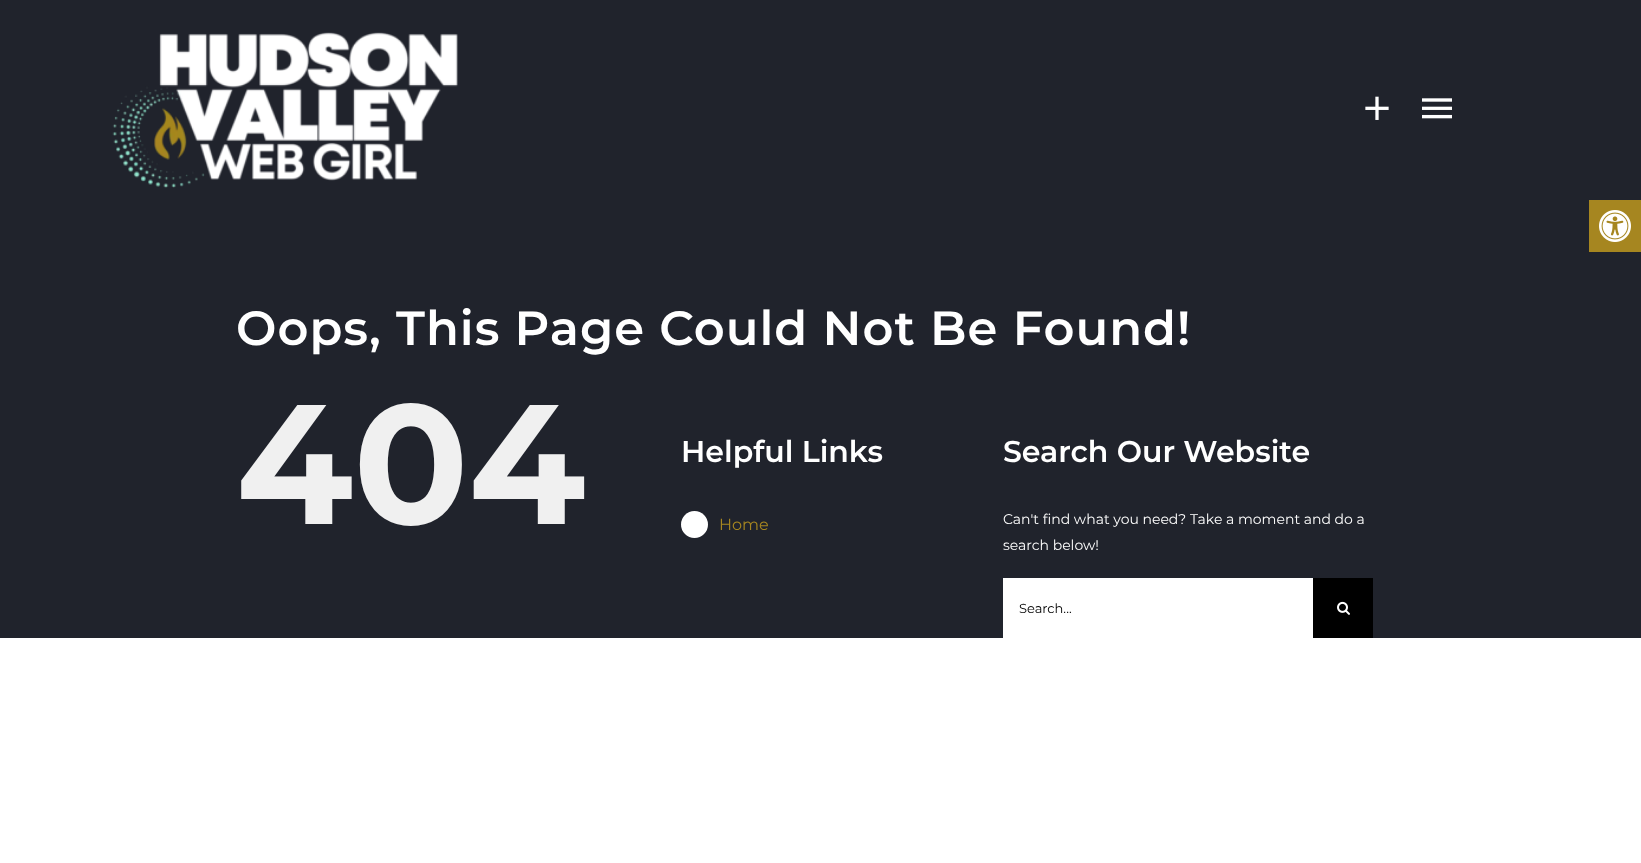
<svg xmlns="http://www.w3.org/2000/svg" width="1641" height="863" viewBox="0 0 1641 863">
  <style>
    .t1 { font: 600 48px Montserrat; letter-spacing: 1px; fill: #fff; }
    .t2 { font: bold 170px Montserrat; fill: #f0f0f0; }
    .t3 { font: 600 30px Montserrat; fill: #fff; }
    .t4 { font: 16px Montserrat; fill: #a68620; }
    .t5 { font: 14px Montserrat; fill: #fff; }
    .t6 { font: 13px Montserrat; fill: #000; }
  </style>
  <rect width="100%" height="100%" fill="#20232c"/>
  <rect x="1589" y="200" width="52" height="52" fill="#a68620"/>
  <image x="1599" y="210" width="32" height="32" href="images/1.png"/>
  <image x="112" y="32" width="346" height="156" href="images/2.png"/>
  <image x="1365" y="96" width="24" height="24" href="images/3.png"/>
  <image x="1422" y="98" width="30" height="21" href="images/4.png"/>
  <text x="236" y="345" class="t1">Oops, This Page Could Not Be Found!</text>
  <text x="236" y="524" class="t2">404</text>
  <text x="681" y="462" class="t3">Helpful Links</text>
  <circle cx="694.5" cy="524.5" r="13.5" fill="#fff"/>
  <text x="719" y="530" class="t4">Home</text>
  <text x="1003" y="462" class="t3">Search Our Website</text>
  <text x="1003" y="524" class="t5">Can't find what you need? Take a moment and do a</text>
  <text x="1003" y="550" class="t5">search below!</text>
  <rect x="1003" y="578" width="310" height="60" fill="#fff"/>
  <text x="1019" y="613" class="t6">Search...</text>
  <rect x="1313" y="578" width="60" height="60" fill="#000"/>
  <image x="1337" y="601" width="13" height="14" href="images/5.png"/>
  <rect x="0" y="638" width="1641" height="225" fill="#fff"/>
</svg>
